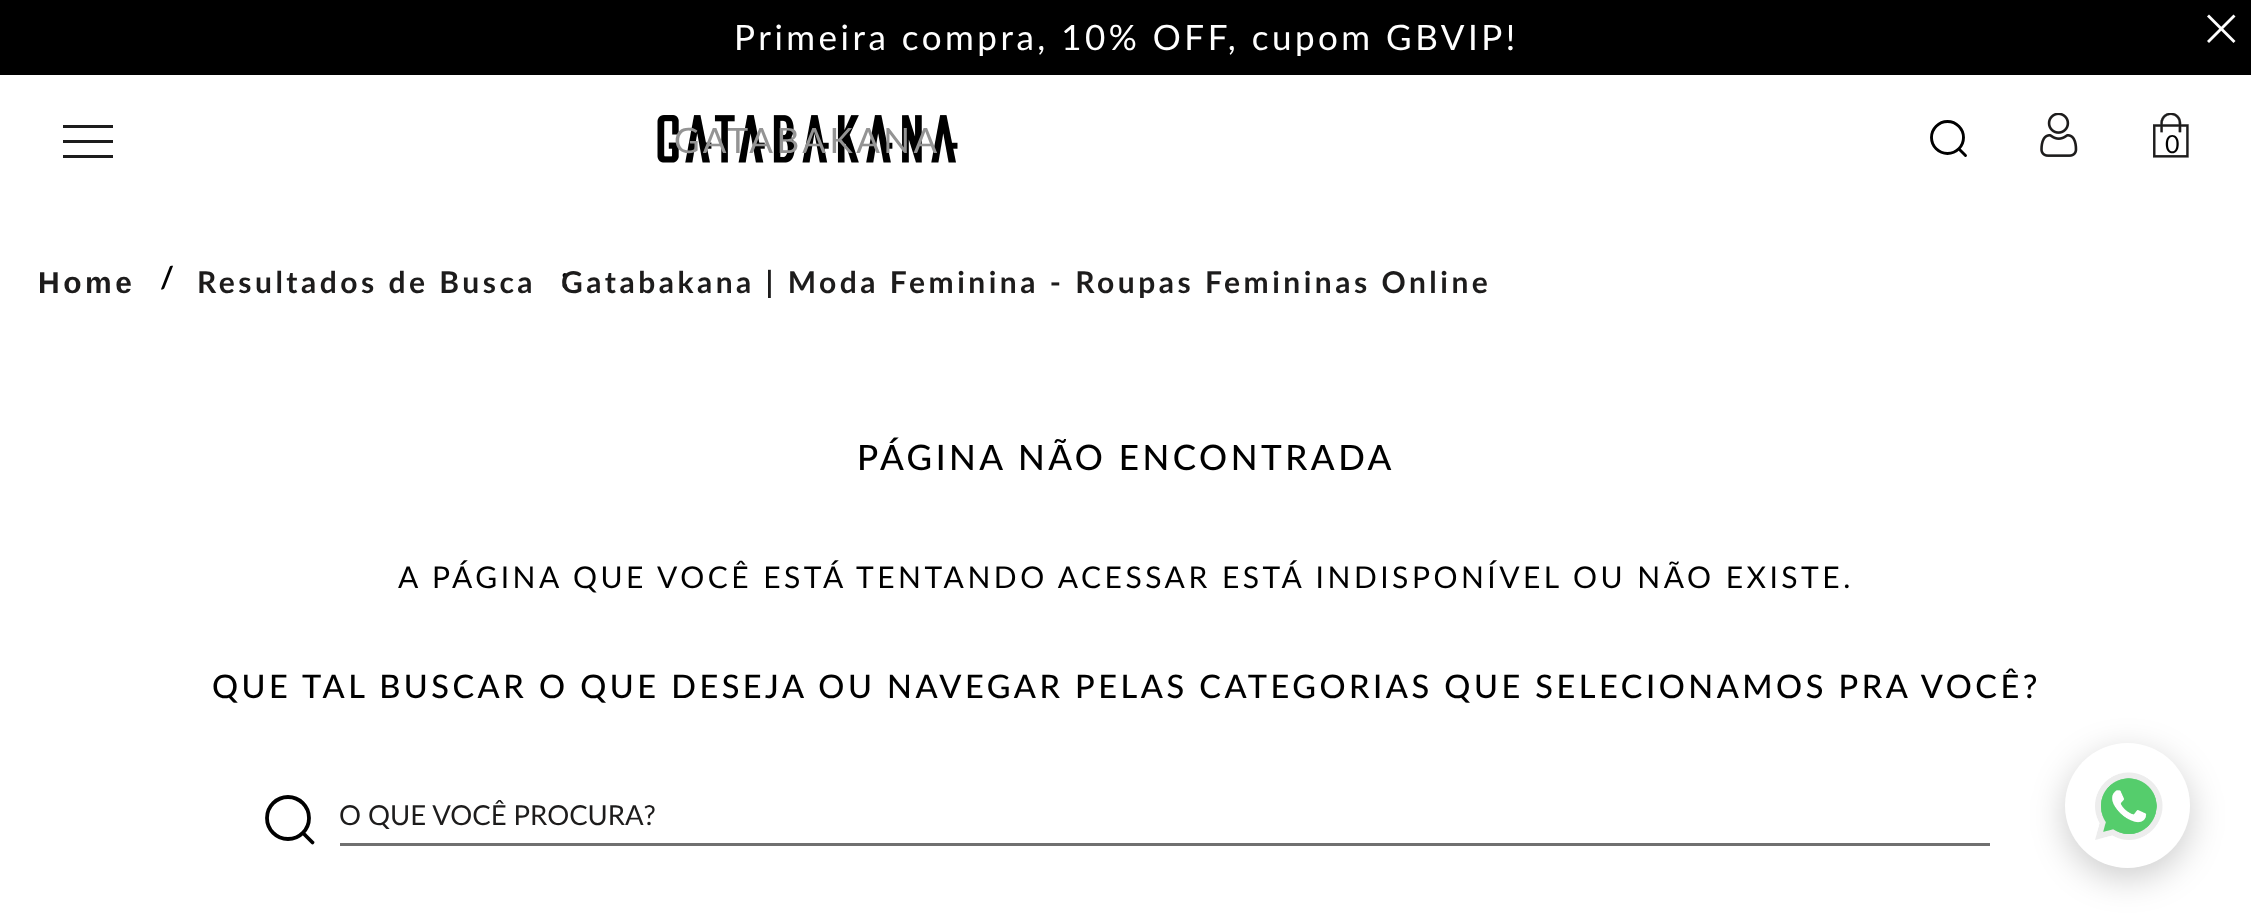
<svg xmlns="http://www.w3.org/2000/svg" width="2251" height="916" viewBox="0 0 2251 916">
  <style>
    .t1 { font: 35px Lato; letter-spacing: 3.5px; fill: #fff; }
    .t2 { font: 35px Lato; letter-spacing: 3.5px; fill: #949494; }
    .t3 { font: 25px Lato; letter-spacing: 3.5px; fill: #000; }
    .t4 { font: bold 30px Liberation Sans; letter-spacing: 3.5px; fill: #1d1c1c; }
    .t5 { font: bold 30px Lato; letter-spacing: 3.5px; fill: #000; }
    .t6 { font: bold 30px Lato; letter-spacing: 3.5px; fill: #1d1c1c; }
    .t7 { font: 500 35px Lato; letter-spacing: 3.5px; fill: #000; }
    .t8 { font: 30px Lato; letter-spacing: 3.5px; fill: #000; }
    .t9 { font: 500 32.5px Lato; letter-spacing: 3.5px; fill: #000; }
    .t10 { font: 27.5px Lato; fill: #1d1c1c; }
  </style>
  <defs>
    <clipPath id="clip1"><rect x="38" y="263" width="2177" height="35"/></clipPath>
  </defs>
  <rect width="100%" height="100%" fill="#fff"/>
  <rect x="0" y="0" width="2251" height="75" fill="#000"/>
  <text x="734" y="50" class="t1">Primeira compra, 10% OFF, cupom GBVIP!</text>
  <path d="M2209 14.5L2235.5 41L2233.5 43L2207 16.5Z" fill="#fff"/>
  <path d="M2207 41L2233.5 14.5L2235.5 16.5L2209 43Z" fill="#fff"/>
  <rect x="63" y="125" width="50" height="3" fill="#1d1c1c"/>
  <rect x="63" y="140" width="50" height="3" fill="#1d1c1c"/>
  <rect x="63" y="155" width="50" height="3" fill="#1d1c1c"/>
  <image x="657" y="115" width="301" height="48" href="images/1.png"/>
  <text x="674" y="153" class="t2">GATABAKANA</text>
  <circle cx="1947.5" cy="137.5" r="16" fill="none" stroke="#000" stroke-width="2.9"/>
  <path d="M1959.5 149.5L1965.5 155.5" fill="none" stroke="#000" stroke-width="2.9" stroke-linecap="round"/>
  <image x="2040" y="113" width="38" height="44" href="images/2.png"/>
  <image x="2153" y="113" width="36" height="45" href="images/3.png"/>
  <text x="2165" y="153" class="t3">0</text>
  <text x="38" y="293" class="t4">Home</text>
  <text x="160" y="288" class="t5">/</text>
  <text x="197" y="293" class="t6">Resultados de Busca</text>
  <text x="561" y="288" class="t5">:</text>
  <g clip-path="url(#clip1)">
    <text x="561" y="293" class="t6">Gatabakana | Moda Feminina - Roupas Femininas Online</text>
  </g>
  <text x="857" y="470" class="t7">PÁGINA NÃO ENCONTRADA</text>
  <text x="398" y="588" class="t8">A PÁGINA QUE VOCÊ ESTÁ TENTANDO ACESSAR ESTÁ INDISPONÍVEL OU NÃO EXISTE.</text>
  <text x="212" y="698" class="t9">QUE TAL BUSCAR O QUE DESEJA OU NAVEGAR PELAS CATEGORIAS QUE SELECIONAMOS PRA VOCÊ?</text>
  <circle cx="288" cy="818" r="21" fill="none" stroke="#000" stroke-width="3.8"/>
  <path d="M304.5 834.5L312.5 842.5" fill="none" stroke="#000" stroke-width="3.8" stroke-linecap="round"/>
  <rect x="340" y="843" width="1650" height="3" fill="#707070"/>
  <text x="339" y="825" class="t10">O QUE VOCÊ PROCURA?</text>
  <rect x="2065" y="753" width="125" height="125" rx="62.5" fill="#00000033" filter="blur(17.5px)"/>
  <circle cx="2127.5" cy="805.5" r="62.5" fill="#fff"/>
  <image x="2095" y="772" width="68" height="68" href="images/4.png"/>
</svg>
